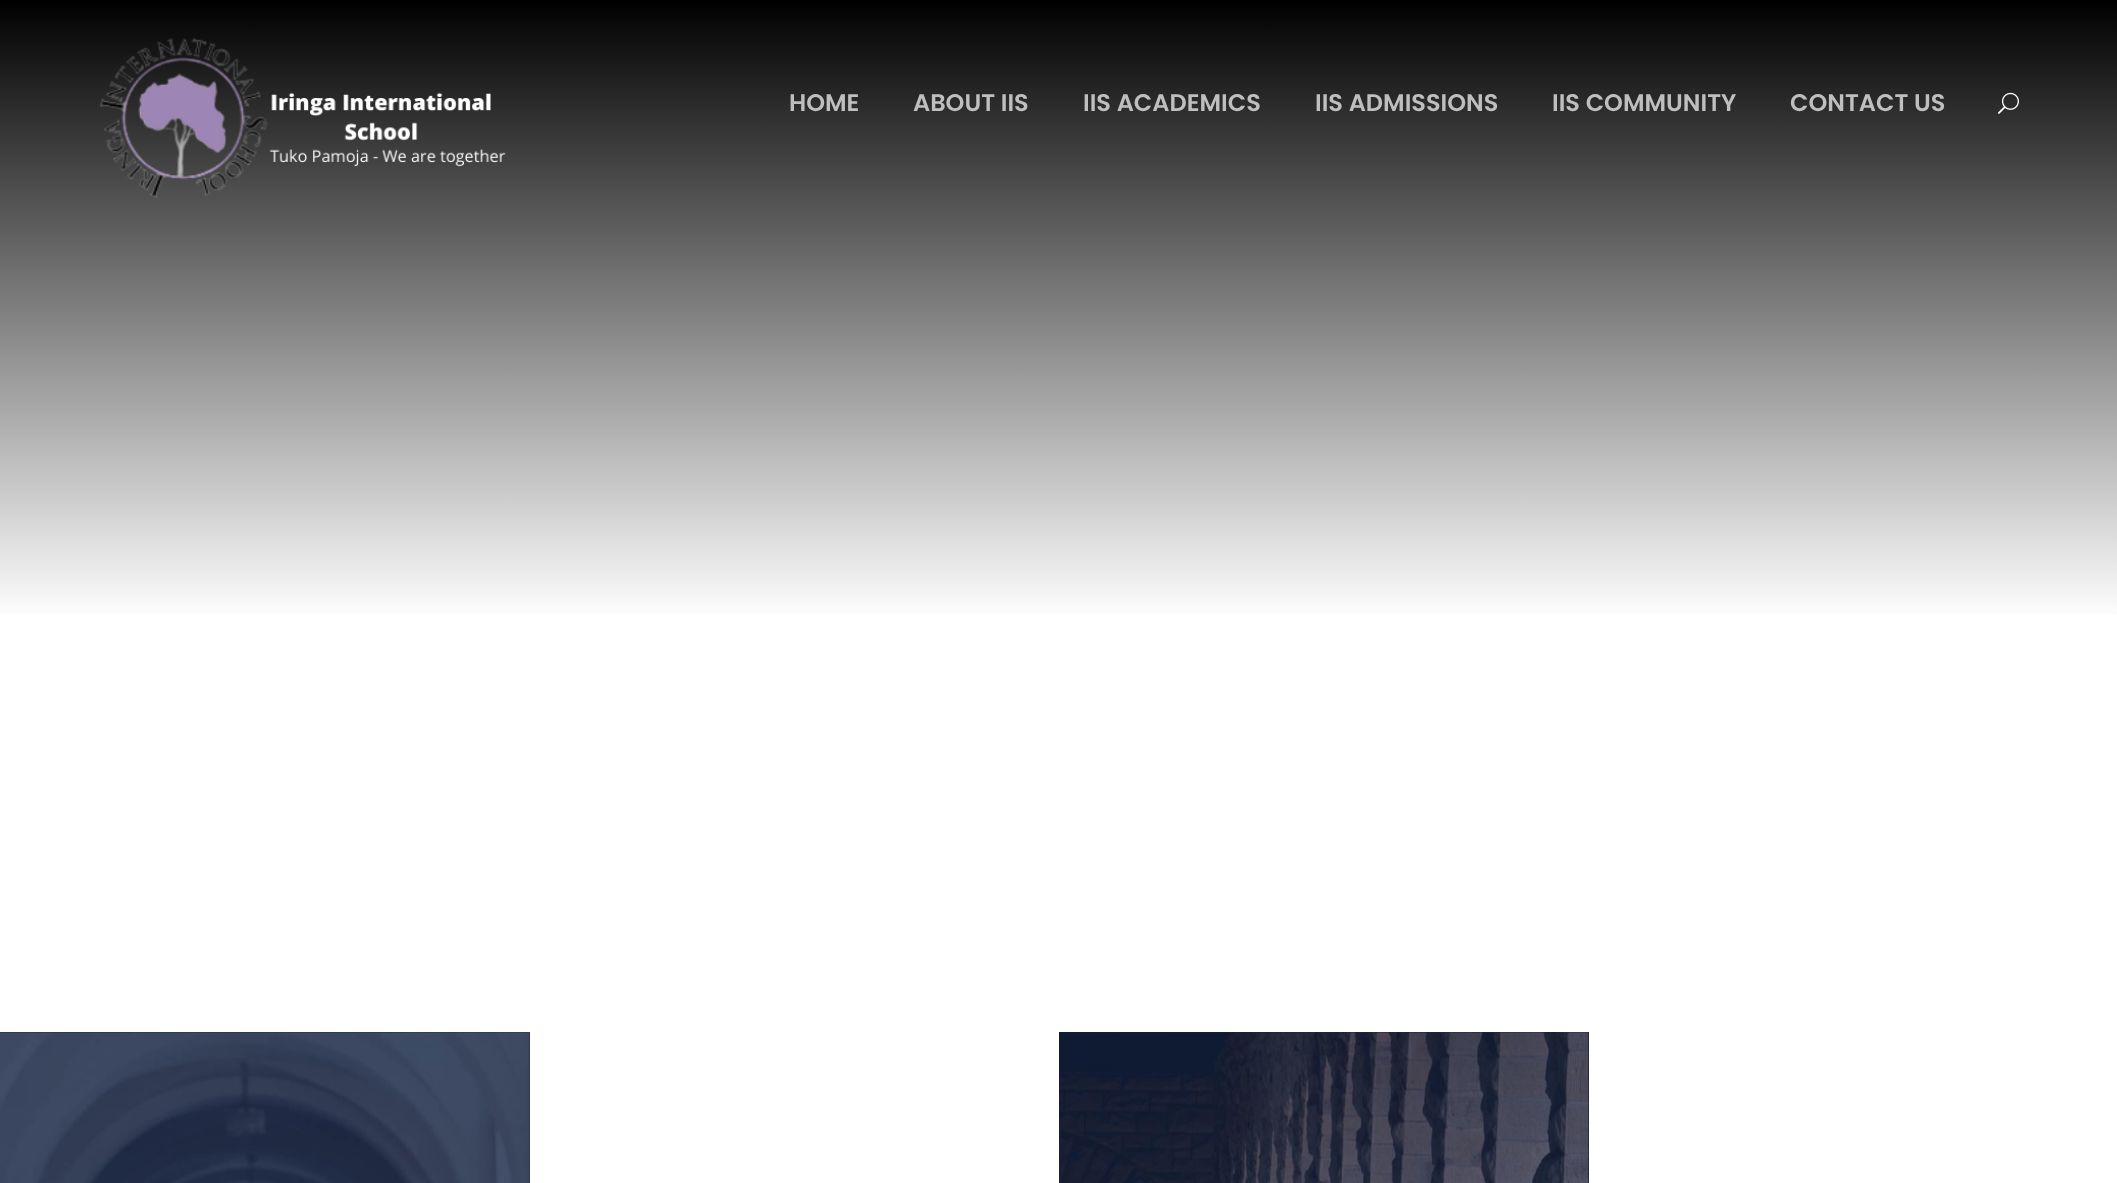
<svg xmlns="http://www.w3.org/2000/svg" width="2117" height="1183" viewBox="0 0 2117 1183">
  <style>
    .t1 { font: 600 24px Poppins; fill: #bfbfbf; }
  </style>
  <defs>
    <linearGradient id="g1" gradientUnits="userSpaceOnUse" x1="1059" y1="0" x2="1059" y2="620"><stop offset="0" stop-color="#000"/><stop offset="1" stop-color="#fff"/></linearGradient>
  </defs>
  <rect width="100%" height="100%" fill="#fff"/>
  <rect x="0" y="0" width="2117" height="614" fill="url(#g1)"/>
  <rect x="0" y="1032" width="530" height="151" fill="#262626"/>
  <image x="0" y="1032" width="530" height="151" href="images/1.png"/>
  <rect x="1059" y="1032" width="530" height="151" fill="#0a0a0a"/>
  <image x="1059" y="1032" width="530" height="151" href="images/2.png"/>
  <image x="100" y="38" width="406" height="161" href="images/3.png"/>
  <text x="789" y="111" class="t1">HOME</text>
  <text x="913" y="111" class="t1">ABOUT IIS</text>
  <text x="1083" y="111" class="t1">IIS ACADEMICS</text>
  <text x="1315" y="111" class="t1">IIS ADMISSIONS</text>
  <text x="1552" y="111" class="t1">IIS COMMUNITY</text>
  <text x="1790" y="111" class="t1">CONTACT US</text>
  <image x="1998" y="92" width="21" height="22" href="images/4.png"/>
</svg>
